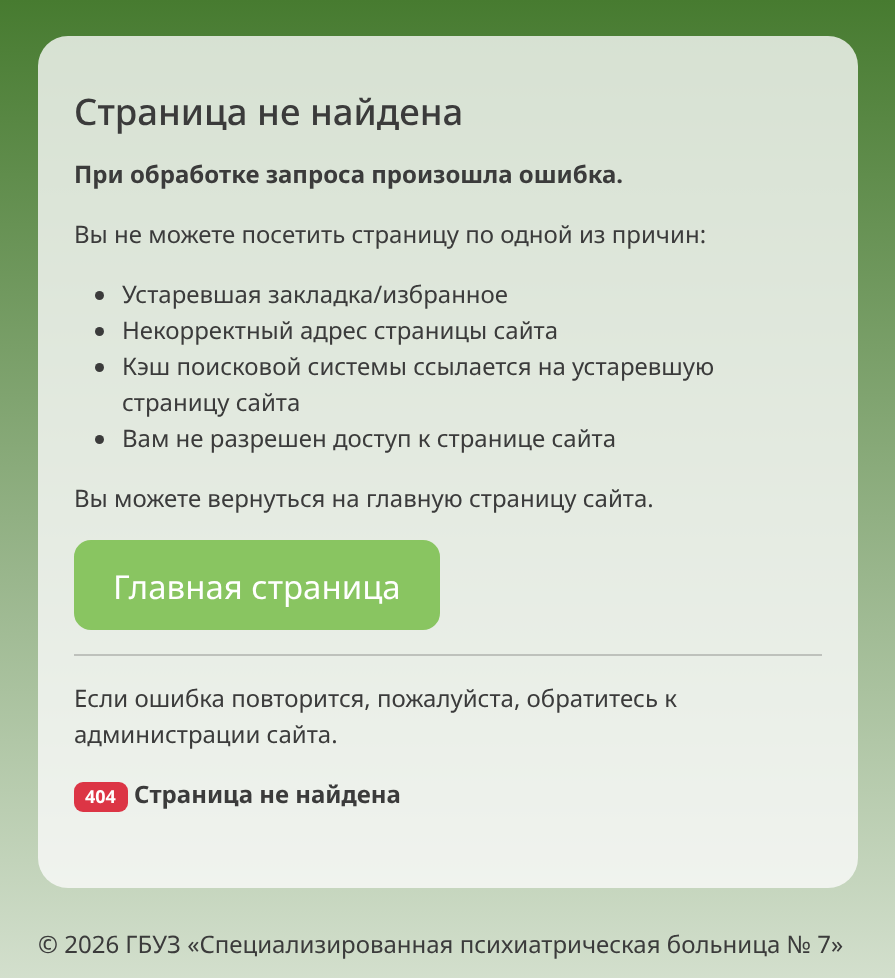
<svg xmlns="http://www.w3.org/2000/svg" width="895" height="978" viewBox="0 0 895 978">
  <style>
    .t1 { font: 500 36.5px Noto Sans; fill: #3b3b3b; }
    .t2 { font: bold 24px Noto Sans; fill: #3b3b3b; }
    .t3 { font: 24px Noto Sans; fill: #3b3b3b; }
    .t4 { font: 33px Noto Sans; fill: #fff; }
    .t5 { font: bold 18px Noto Sans; fill: #fff; }
  </style>
  <defs>
    <linearGradient id="g1" gradientUnits="userSpaceOnUse" x1="448" y1="0" x2="448" y2="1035"><stop offset="0" stop-color="#477b30"/><stop offset="1" stop-color="#dbe5d6"/></linearGradient>
  </defs>
  <rect width="100%" height="100%" fill="#fff"/>
  <rect x="0" y="0" width="895" height="978" fill="url(#g1)"/>
  <rect x="38" y="36" width="820" height="852" rx="30" fill="#fafafacc"/>
  <text x="74" y="125" class="t1">Страница не найдена</text>
  <text x="74" y="183" class="t2">При обработке запроса произошла ошибка.</text>
  <text x="74" y="243" class="t3">Вы не можете посетить страницу по одной из причин:</text>
  <circle cx="99.5" cy="295.5" r="4.5" fill="#3b3b3b"/>
  <text x="122" y="303" class="t3">Устаревшая закладка/избранное</text>
  <circle cx="99.5" cy="331.5" r="4.5" fill="#3b3b3b"/>
  <text x="122" y="339" class="t3">Некорректный адрес страницы сайта</text>
  <circle cx="99.5" cy="367.5" r="4.5" fill="#3b3b3b"/>
  <text x="122" y="375" class="t3">Кэш поисковой системы ссылается на устаревшую</text>
  <text x="122" y="411" class="t3">страницу сайта</text>
  <circle cx="99.5" cy="439.5" r="4.5" fill="#3b3b3b"/>
  <text x="122" y="447" class="t3">Вам не разрешен доступ к странице сайта</text>
  <text x="74" y="507" class="t3">Вы можете вернуться на главную страницу сайта.</text>
  <rect x="75" y="541" width="364" height="88" rx="16" fill="#89c561" stroke="#89c561" stroke-width="2"/>
  <text x="113" y="599" class="t4">Главная страница</text>
  <rect x="74" y="654" width="748" height="2" fill="#bec1bc"/>
  <text x="74" y="707" class="t3">Если ошибка повторится, пожалуйста, обратитесь к</text>
  <text x="74" y="743" class="t3">администрации сайта.</text>
  <rect x="74" y="782" width="54" height="30" rx="9" fill="#dc3545"/>
  <text x="85" y="803" class="t5">404</text>
  <text x="134" y="803" class="t2">Страница не найдена</text>
  <text x="38" y="953" class="t3">© 2026 ГБУЗ «Специализированная психиатрическая больница № 7»</text>
</svg>
